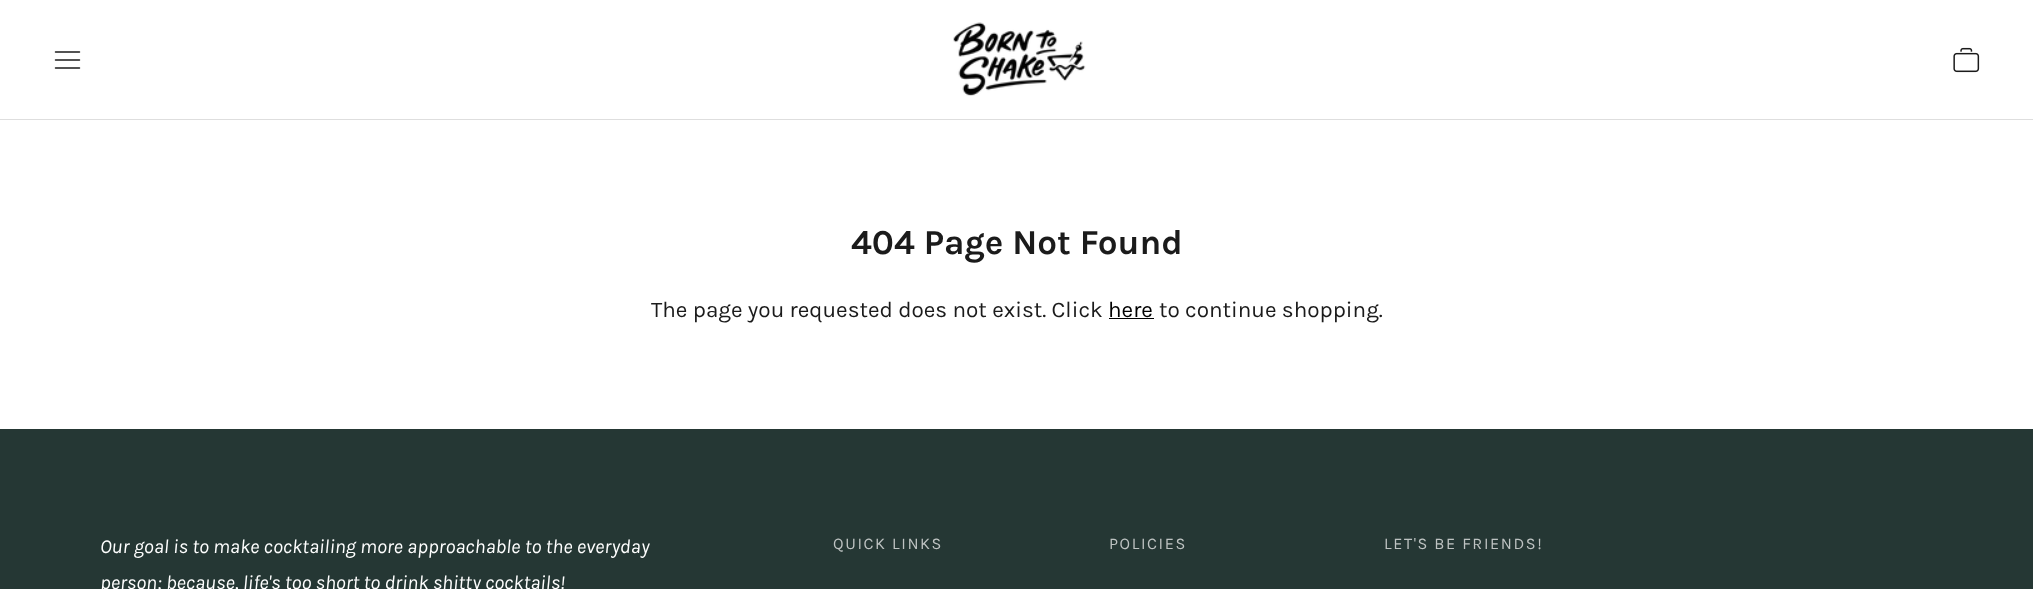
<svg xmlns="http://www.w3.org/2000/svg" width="2033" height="589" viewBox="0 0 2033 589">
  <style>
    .t1 { font: bold 35px Karla; fill: #1b1b1b; }
    .t2 { font: 22.5px Karla; fill: #1b1b1b; }
    .t3 { font: 22.5px Karla; fill: #000; }
    .t4 { font: italic 20px Karla; fill: #fff; }
    .t5 { font: 16.25px Karla; letter-spacing: 1.6px; fill: #bec3c2; }
  </style>
  <rect width="100%" height="100%" fill="#fff"/>
  <rect x="0" y="119" width="2033" height="1" fill="#dedede"/>
  <path d="M55.5 60H79.5M55.5 52H79.5M55.5 68H79.5" fill="none" stroke="#1b1b1b" stroke-width="1.5" stroke-linecap="round" stroke-linejoin="round"/>
  <image x="953" y="22" width="133" height="74" href="images/1.png"/>
  <image x="1953" y="47" width="27" height="26" href="images/2.png"/>
  <text x="851" y="254" class="t1">404 Page Not Found</text>
  <text x="651" y="317" class="t2">The page you requested does not exist. Click</text>
  <text x="1108" y="317" class="t3">here</text>
  <rect x="1109" y="318" width="45" height="1" fill="#000"/>
  <text x="1159" y="317" class="t2">to continue shopping.</text>
  <rect x="0" y="429" width="2033" height="160" fill="#253734"/>
  <text x="100" y="553" class="t4">Our goal is to make cocktailing more approachable to the everyday</text>
  <text x="100" y="589" class="t4">person; because, life's too short to drink shitty cocktails!</text>
  <text x="833" y="549" class="t5">QUICK LINKS</text>
  <text x="1109" y="549" class="t5">POLICIES</text>
  <text x="1384" y="549" class="t5">LET'S BE FRIENDS!</text>
</svg>
